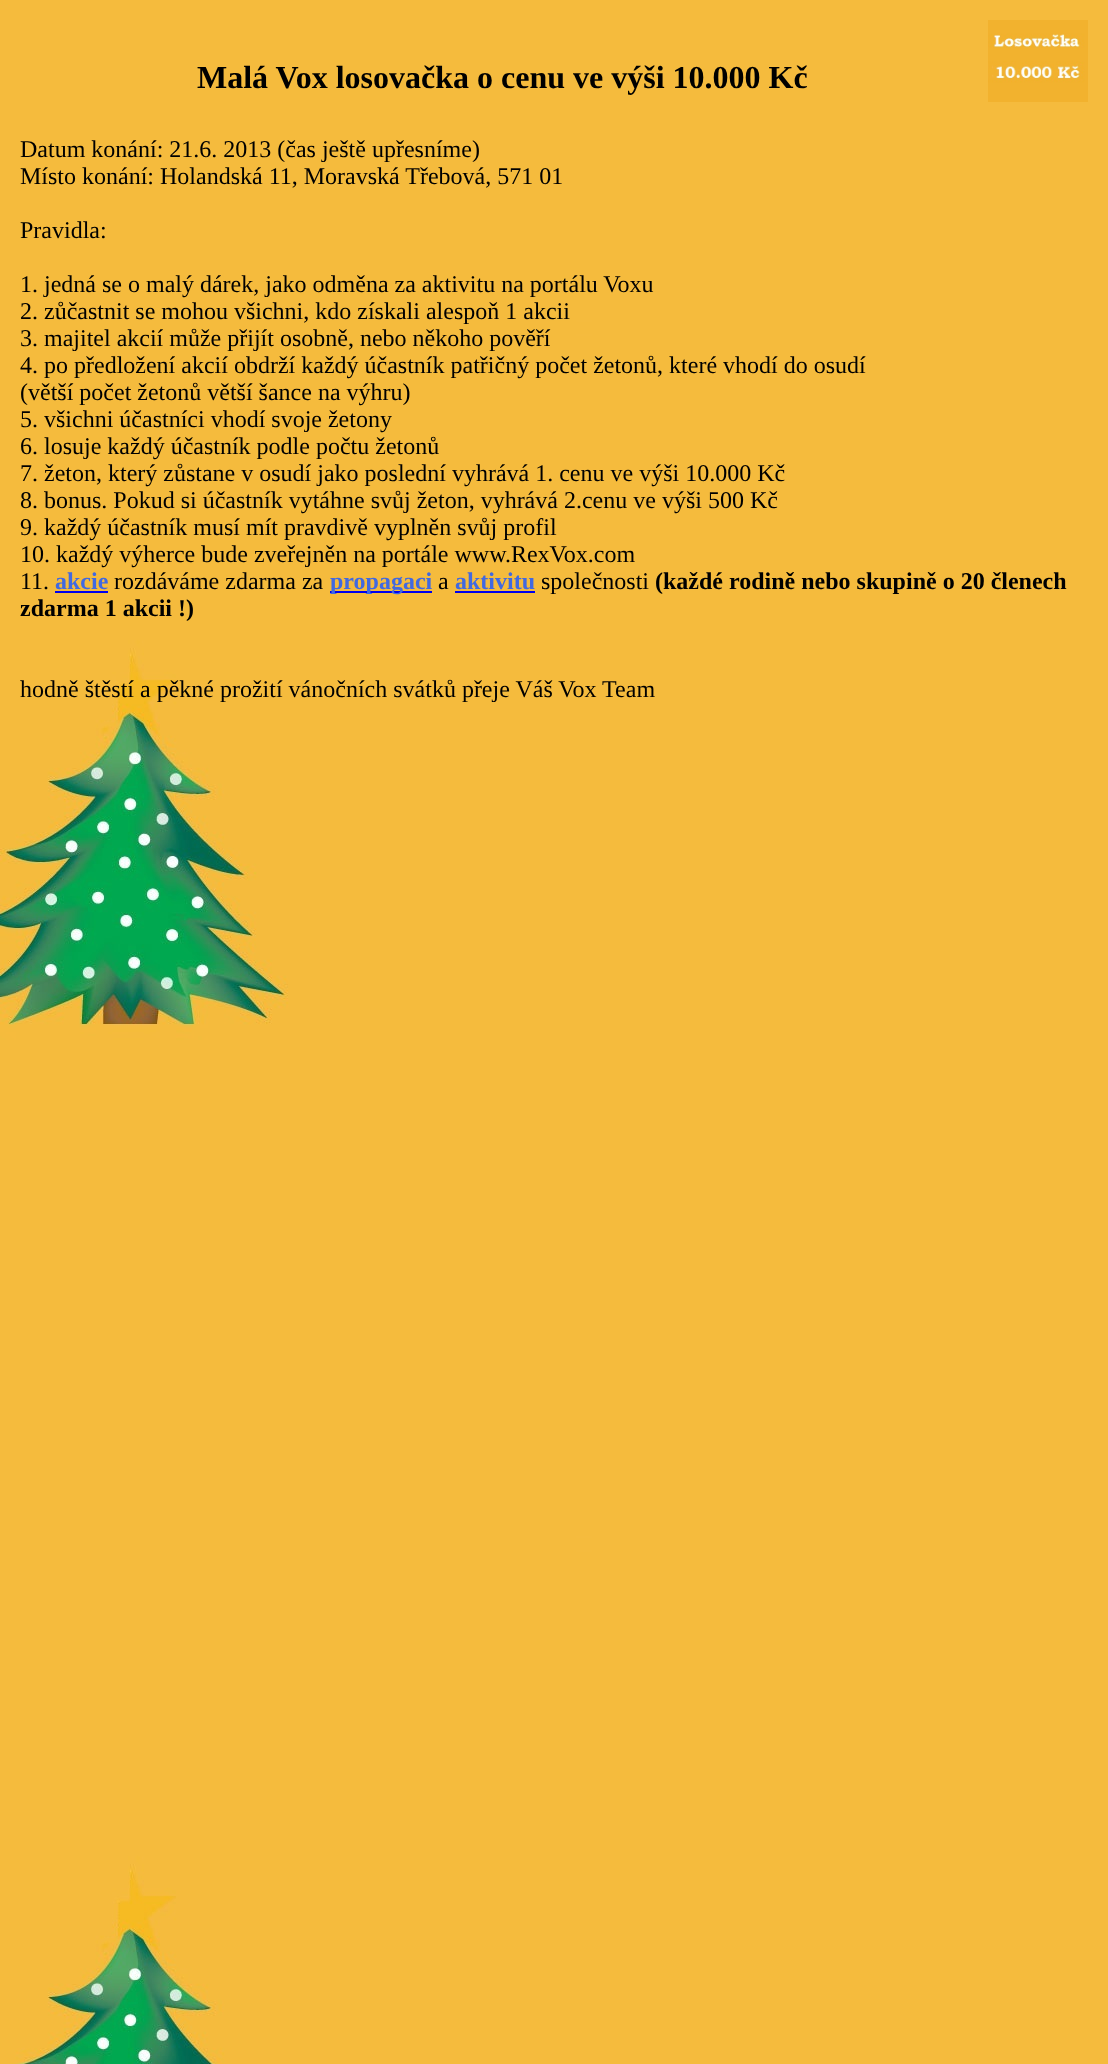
<svg xmlns="http://www.w3.org/2000/svg" width="1108" height="2064" viewBox="0 0 1108 2064">
  <style>
    .t1 { font: bold 32px Liberation Serif; fill: #000; }
    .t2 { font: 24px Liberation Serif; fill: #000; }
    .t3 { font: bold 24px Liberation Serif; fill: #4169e1; }
    .t4 { font: bold 24px Liberation Serif; fill: #000; }
  </style>
  <rect width="100%" height="100%" fill="#fff"/>
  <image x="0" y="0" width="1108" height="2064" href="images/1.png"/>
  <text x="197" y="88" class="t1">Malá Vox losovačka o cenu ve výši 10.000 Kč</text>
  <image x="988" y="20" width="100" height="82" href="images/2.png"/>
  <text x="20" y="157" class="t2">Datum konání: 21.6. 2013 (čas ještě upřesníme)</text>
  <text x="20" y="184" class="t2">Místo konání: Holandská 11, Moravská Třebová, 571 01</text>
  <text x="20" y="238" class="t2">Pravidla:</text>
  <text x="20" y="292" class="t2">1. jedná se o malý dárek, jako odměna za aktivitu na portálu Voxu</text>
  <text x="20" y="319" class="t2">2. zůčastnit se mohou všichni, kdo získali alespoň 1 akcii</text>
  <text x="20" y="346" class="t2">3. majitel akcií může přijít osobně, nebo někoho pověří</text>
  <text x="20" y="373" class="t2">4. po předložení akcií obdrží každý účastník patřičný počet žetonů, které vhodí do osudí</text>
  <text x="20" y="400" class="t2">(větší počet žetonů větší šance na výhru)</text>
  <text x="20" y="427" class="t2">5. všichni účastníci vhodí svoje žetony</text>
  <text x="20" y="454" class="t2">6. losuje každý účastník podle počtu žetonů</text>
  <text x="20" y="481" class="t2">7. žeton, který zůstane v osudí jako poslední vyhrává 1. cenu ve výši 10.000 Kč</text>
  <text x="20" y="508" class="t2">8. bonus. Pokud si účastník vytáhne svůj žeton, vyhrává 2.cenu ve výši 500 Kč</text>
  <text x="20" y="535" class="t2">9. každý účastník musí mít pravdivě vyplněn svůj profil</text>
  <text x="20" y="562" class="t2">10. každý výherce bude zveřejněn na portále www.RexVox.com</text>
  <text x="20" y="589" class="t2">11.</text>
  <text x="55" y="589" class="t3">akcie</text>
  <rect x="55" y="591" width="53" height="2" fill="#00e"/>
  <text x="114" y="589" class="t2">rozdáváme zdarma za</text>
  <rect x="330" y="591" width="102" height="2" fill="#00e"/>
  <text x="330" y="589" class="t3">propagaci</text>
  <text x="438" y="589" class="t2">a</text>
  <text x="455" y="589" class="t3">aktivitu</text>
  <rect x="455" y="591" width="80" height="2" fill="#00e"/>
  <text x="541" y="589" class="t2">společnosti</text>
  <text x="655" y="589" class="t4">(každé rodině nebo skupině o 20 členech</text>
  <text x="20" y="616" class="t4">zdarma 1 akcii !)</text>
  <text x="20" y="697" class="t2">hodně štěstí a pěkné prožití vánočních svátků přeje Váš Vox Team</text>
</svg>
